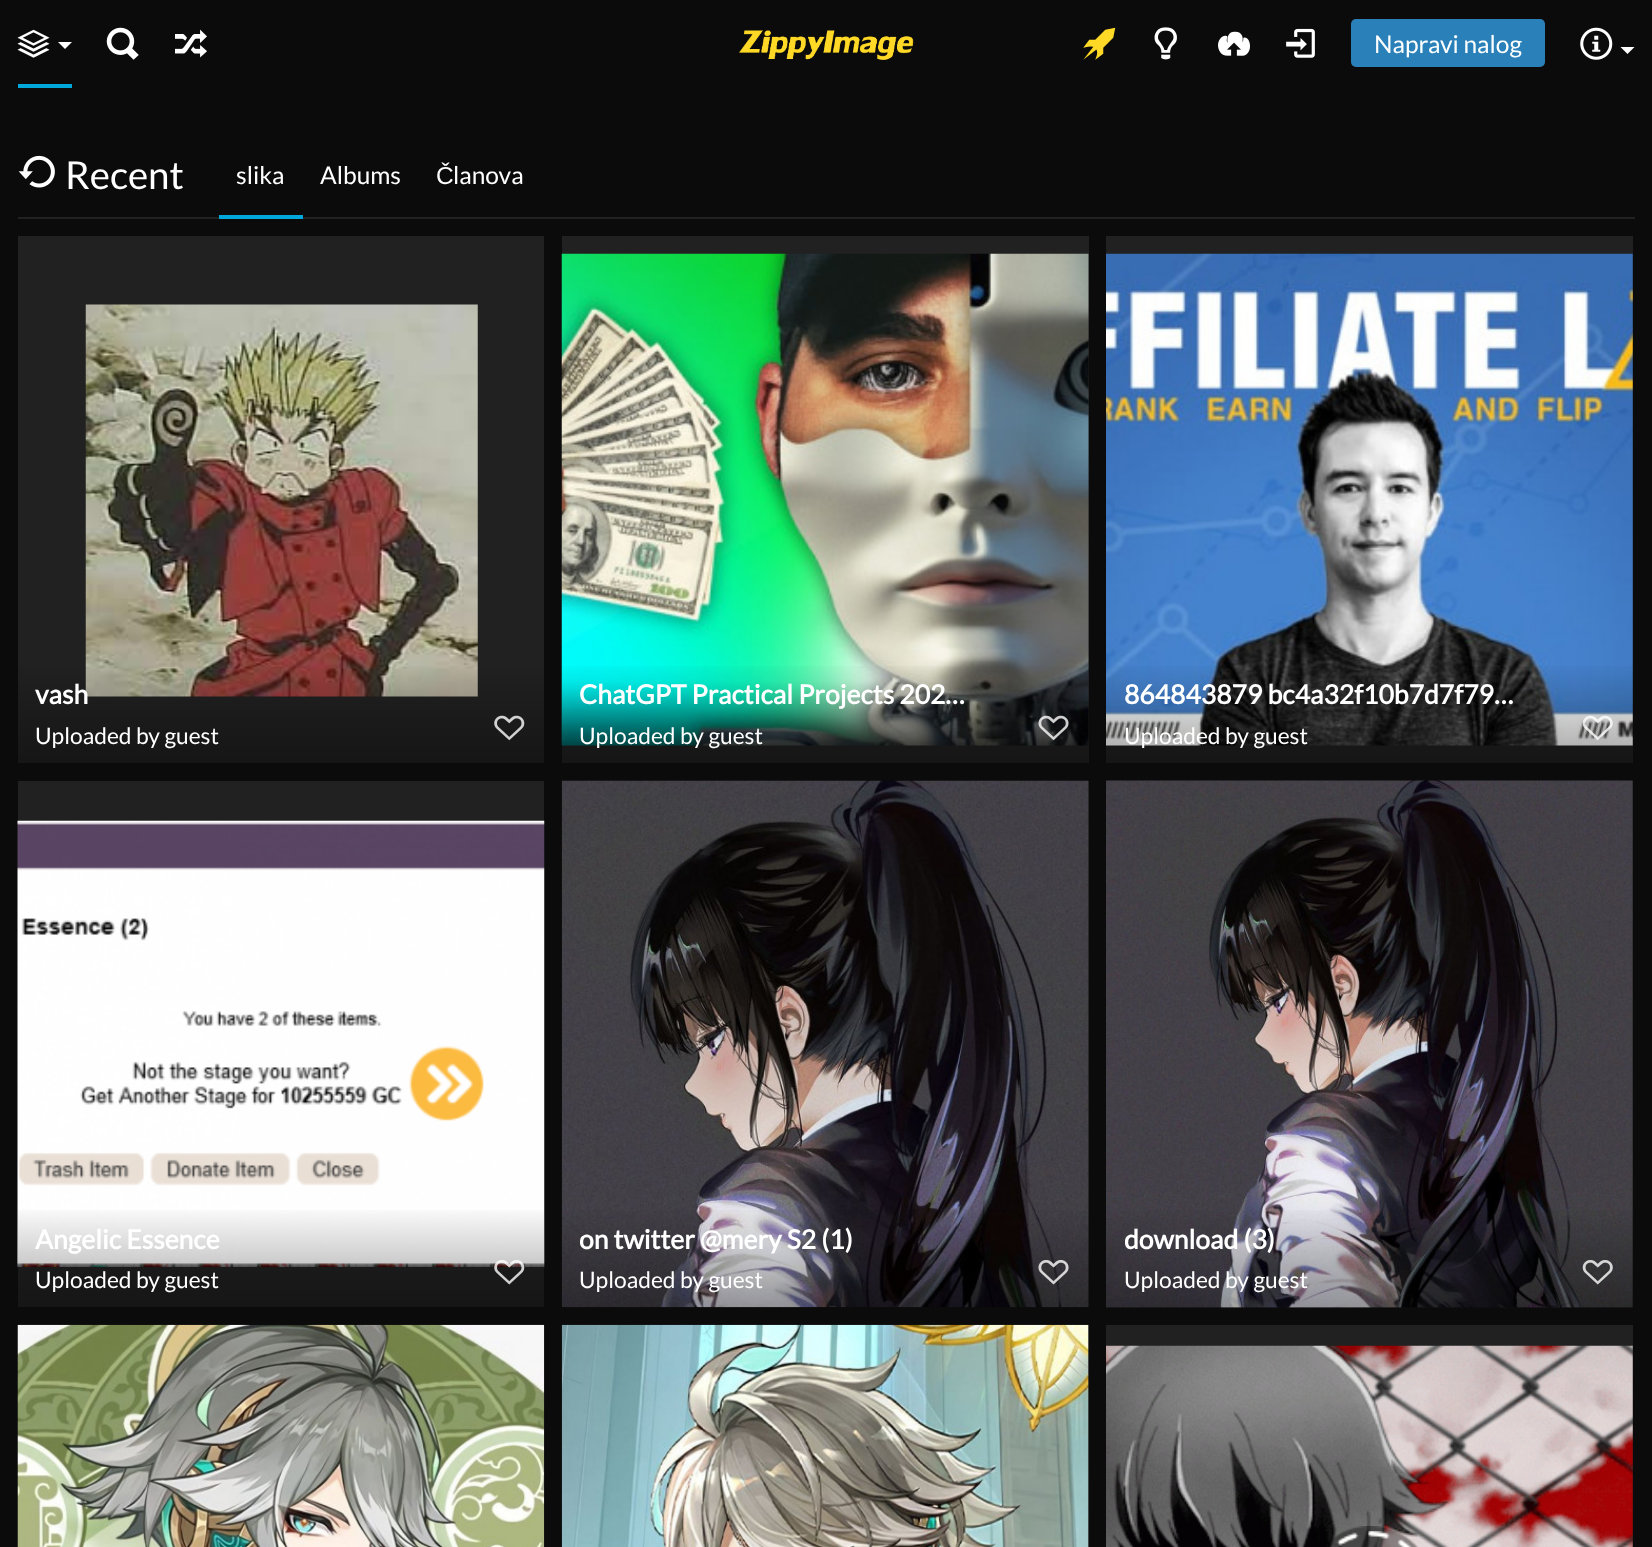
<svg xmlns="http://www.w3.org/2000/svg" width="1652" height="1547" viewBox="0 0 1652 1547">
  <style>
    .t1 { font: 24.5px Lato; fill: #fff; }
    .t2 { font: 38.5px Lato; fill: #fff; }
    .t3 { font: 24.5px Liberation Sans; fill: #fff; }
    .t4 { font: bold 26.5px Lato; fill: #fff; }
    .t5 { font: 22.75px Lato; fill: #fff; }
  </style>
  <defs>
    <linearGradient id="g1" gradientUnits="userSpaceOnUse" x1="281" y1="660" x2="281" y2="763"><stop offset="0" stop-color="#000" stop-opacity="0"/><stop offset="1" stop-color="#000" stop-opacity="0.35"/></linearGradient>
    <linearGradient id="g2" gradientUnits="userSpaceOnUse" x1="825" y1="660" x2="825" y2="763"><stop offset="0" stop-color="#000" stop-opacity="0"/><stop offset="1" stop-color="#000" stop-opacity="0.35"/></linearGradient>
    <linearGradient id="g3" gradientUnits="userSpaceOnUse" x1="1369" y1="660" x2="1369" y2="763"><stop offset="0" stop-color="#000" stop-opacity="0"/><stop offset="1" stop-color="#000" stop-opacity="0.35"/></linearGradient>
    <linearGradient id="g4" gradientUnits="userSpaceOnUse" x1="281" y1="1204" x2="281" y2="1307"><stop offset="0" stop-color="#000" stop-opacity="0"/><stop offset="1" stop-color="#000" stop-opacity="0.35"/></linearGradient>
    <linearGradient id="g5" gradientUnits="userSpaceOnUse" x1="825" y1="1204" x2="825" y2="1307"><stop offset="0" stop-color="#000" stop-opacity="0"/><stop offset="1" stop-color="#000" stop-opacity="0.35"/></linearGradient>
    <linearGradient id="g6" gradientUnits="userSpaceOnUse" x1="1369" y1="1204" x2="1369" y2="1307"><stop offset="0" stop-color="#000" stop-opacity="0"/><stop offset="1" stop-color="#000" stop-opacity="0.35"/></linearGradient>
  </defs>
  <rect width="100%" height="100%" fill="#0b0b0b"/>
  <rect x="18" y="84" width="54" height="4" fill="#00a7da"/>
  <image x="17" y="29" width="33" height="29" href="images/1.png"/>
  <path d="M58 42H72L65 49Z" fill="#fff"/>
  <image x="106" y="27" width="33" height="33" href="images/2.png"/>
  <image x="175" y="29" width="32" height="29" href="images/3.png"/>
  <image x="739" y="30" width="175" height="30" href="images/4.png"/>
  <image x="1083" y="27" width="33" height="33" href="images/5.png"/>
  <image x="1154" y="27" width="23" height="33" href="images/6.png"/>
  <image x="1218" y="31" width="32" height="25" href="images/7.png"/>
  <image x="1286" y="28" width="29" height="30" href="images/8.png"/>
  <rect x="1351" y="19" width="194" height="48" rx="5" fill="#2a80b9"/>
  <text x="1374" y="53" class="t1">Napravi nalog</text>
  <image x="1580" y="27" width="33" height="33" href="images/9.png"/>
  <path d="M1620.5 47H1634.5L1627.5 54Z" fill="#fff"/>
  <rect x="18" y="217" width="1617" height="2" fill="#212121"/>
  <image x="18" y="155" width="37" height="33" href="images/10.png"/>
  <text x="65" y="189" class="t2">Recent</text>
  <rect x="219" y="215" width="84" height="4" fill="#00a7da"/>
  <text x="236" y="184" class="t1">slika</text>
  <text x="320" y="184" class="t1">Albums</text>
  <text x="436" y="184" class="t3">Č</text>
  <text x="453" y="184" class="t1">lanova</text>
  <rect x="18" y="236" width="526" height="527" fill="#212121"/>
  <image x="85" y="304" width="393" height="393" href="images/11.png"/>
  <rect x="18" y="666" width="526" height="97" fill="url(#g1)"/>
  <text x="35" y="704" class="t4">vash</text>
  <text x="35" y="744" class="t5">Uploaded by guest</text>
  <image x="494" y="715" width="31" height="26" href="images/12.png"/>
  <rect x="562" y="236" width="527" height="527" fill="#212121"/>
  <image x="561" y="253" width="528" height="493" href="images/13.png"/>
  <rect x="562" y="666" width="527" height="97" fill="url(#g2)"/>
  <text x="579" y="704" class="t4">ChatGPT Practical Projects 202…</text>
  <text x="579" y="744" class="t5">Uploaded by guest</text>
  <image x="1038" y="715" width="31" height="26" href="images/14.png"/>
  <rect x="1106" y="236" width="527" height="527" fill="#212121"/>
  <image x="1106" y="253" width="527" height="493" href="images/15.png"/>
  <rect x="1106" y="666" width="527" height="97" fill="url(#g3)"/>
  <text x="1124" y="704" class="t4">864843879 bc4a32f10b7d7f79…</text>
  <text x="1124" y="744" class="t5">Uploaded by guest</text>
  <image x="1582" y="715" width="31" height="26" href="images/16.png"/>
  <rect x="18" y="781" width="526" height="526" fill="#212121"/>
  <image x="17" y="820" width="528" height="447" href="images/17.png"/>
  <rect x="18" y="1210" width="526" height="97" fill="url(#g4)"/>
  <text x="35" y="1249" class="t4">Angelic Essence</text>
  <text x="35" y="1288" class="t5">Uploaded by guest</text>
  <image x="494" y="1260" width="31" height="25" href="images/18.png"/>
  <rect x="1088" y="781" width="1" height="526" fill="#212121"/>
  <image x="561" y="780" width="528" height="528" href="images/19.png"/>
  <rect x="562" y="1210" width="527" height="97" fill="url(#g5)"/>
  <text x="579" y="1249" class="t4">on twitter @mery S2 (1)</text>
  <text x="579" y="1288" class="t5">Uploaded by guest</text>
  <image x="1038" y="1260" width="31" height="25" href="images/20.png"/>
  <rect x="1632" y="781" width="1" height="526" fill="#212121"/>
  <image x="1106" y="780" width="527" height="528" href="images/21.png"/>
  <rect x="1106" y="1210" width="527" height="97" fill="url(#g6)"/>
  <text x="1124" y="1249" class="t4">download (3)</text>
  <text x="1124" y="1288" class="t5">Uploaded by guest</text>
  <image x="1582" y="1260" width="31" height="25" href="images/22.png"/>
  <image x="17" y="1324" width="528" height="223" href="images/23.png"/>
  <rect x="1088" y="1325" width="1" height="222" fill="#212121"/>
  <image x="561" y="1324" width="528" height="223" href="images/24.png"/>
  <rect x="1106" y="1325" width="527" height="222" fill="#212121"/>
  <image x="1106" y="1345" width="527" height="202" href="images/25.png"/>
  <image x="1328" y="1526" width="90" height="21" href="images/26.png"/>
  <image x="1336" y="1531" width="76" height="16" href="images/27.png"/>
</svg>
